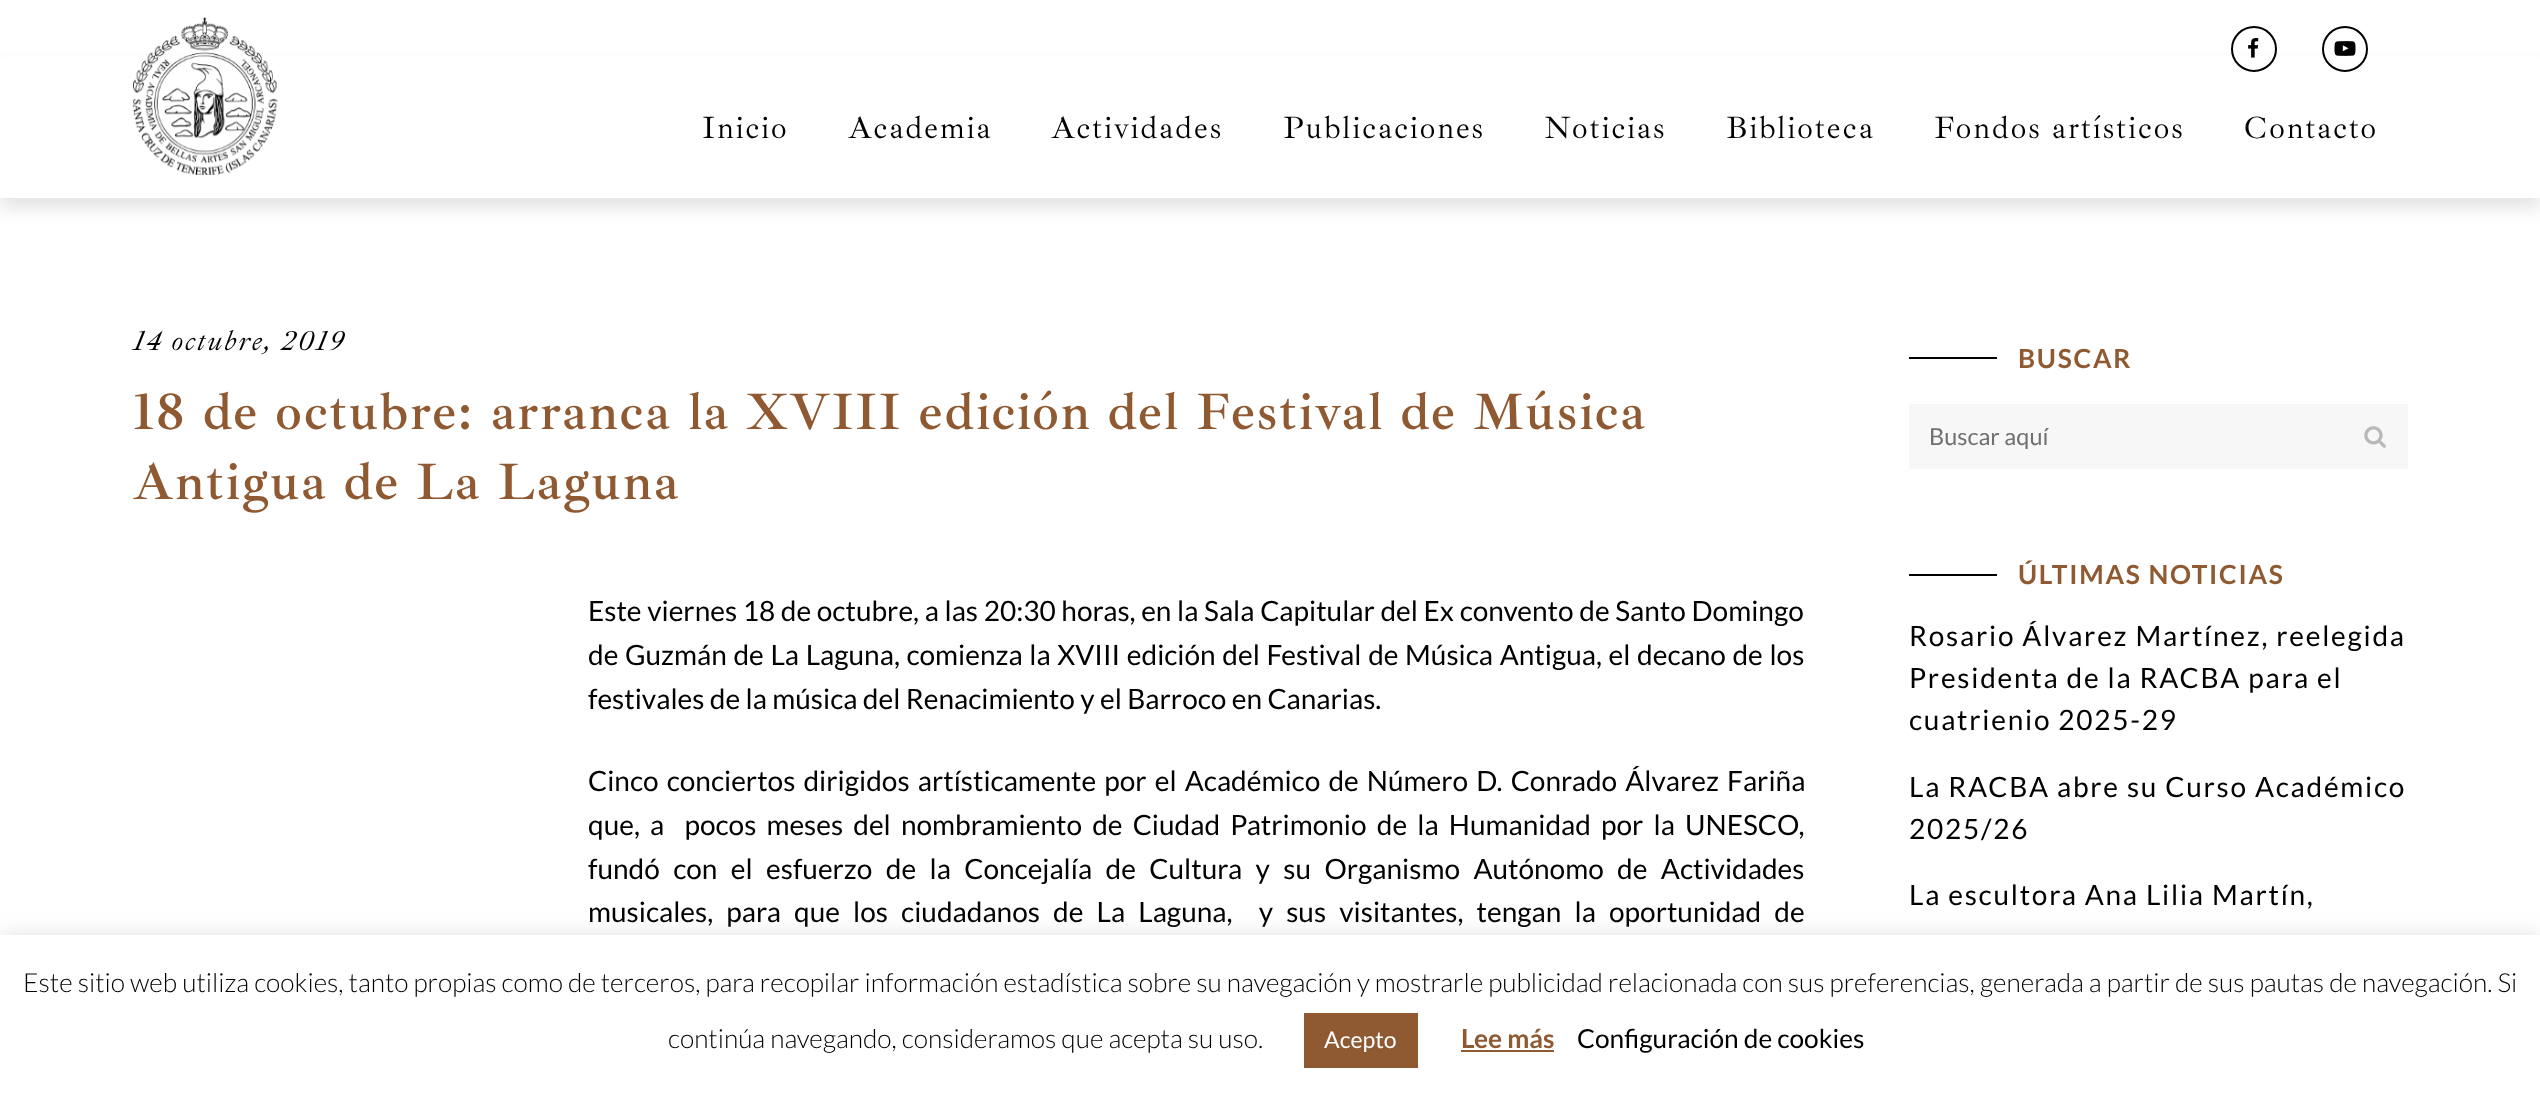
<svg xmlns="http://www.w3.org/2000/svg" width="2540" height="1097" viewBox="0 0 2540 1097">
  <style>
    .t1 { font: 31.5px Ibarra Real Nova; letter-spacing: 1.75px; fill: #000; }
    .t2 { font: italic 28px Ibarra Real Nova; letter-spacing: 1.75px; fill: #000; }
    .t3 { font: 600 52.5px Ibarra Real Nova; letter-spacing: 1.75px; fill: #8f5932; }
    .t4 { font: 28px Lato; fill: #000; }
    .t5 { font: bold 26.25px Lato; letter-spacing: 1.75px; fill: #8f5932; }
    .t6 { font: 23.5px Lato; fill: #707070; }
    .t7 { font: 28px Lato; letter-spacing: 1.75px; fill: #000; }
    .t8 { font: 300 26.25px Lato; fill: #000; }
    .t9 { font: 23px Lato; fill: #fff; }
    .t10 { font: bold 26.25px Lato; fill: #8f5932; }
    .t11 { font: 26.25px Lato; fill: #000; }
  </style>
  <rect width="100%" height="100%" fill="#fff"/>
  <rect x="0" y="68" width="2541" height="140" fill="#0000001c" filter="blur(9px)"/>
  <rect x="6" y="56" width="2529" height="2" fill="#fff"/>
  <rect x="0" y="58" width="2540" height="140" fill="#fff"/>
  <circle cx="2254" cy="49" r="22" fill="none" stroke="#000" stroke-width="2"/>
  <image x="2248" y="38" width="11" height="20" href="images/1.png"/>
  <circle cx="2345" cy="49" r="22" fill="none" stroke="#000" stroke-width="2"/>
  <image x="2334" y="41" width="22" height="15" href="images/2.png"/>
  <image x="133" y="17" width="146" height="158" href="images/3.png"/>
  <text x="702" y="138" class="t1">Inicio</text>
  <text x="848" y="138" class="t1">Academia</text>
  <text x="1051" y="138" class="t1">Actividades</text>
  <text x="1283" y="138" class="t1">Publicaciones</text>
  <text x="1544" y="138" class="t1">Noticias</text>
  <text x="1726" y="138" class="t1">Biblioteca</text>
  <text x="1934" y="138" class="t1">Fondos artísticos</text>
  <text x="2244" y="138" class="t1">Contacto</text>
  <text x="133" y="350" class="t2">14 octubre, 2019</text>
  <text x="133" y="429" class="t3">18 de octubre: arranca la XVIII edición del Festival de Música</text>
  <text x="133" y="499" class="t3">Antigua de La Laguna</text>
  <text x="588" y="621" word-spacing="0.25" class="t4">Este viernes 18 de octubre, a las 20:30 horas, en la Sala Capitular del Ex convento de Santo Domingo</text>
  <text x="588" y="665" word-spacing="1.25" class="t4">de Guzmán de La Laguna, comienza la XVIII edición del Festival de Música Antigua, el decano de los</text>
  <text x="588" y="709" class="t4">festivales de la música del Renacimiento y el Barroco en Canarias.</text>
  <text x="588" y="791" word-spacing="2.75" class="t4">Cinco conciertos dirigidos artísticamente por el Académico de Número D. Conrado Álvarez Fariña</text>
  <text x="588" y="835" word-spacing="4.75" class="t4" xml:space="preserve">que, a  pocos meses del nombramiento de Ciudad Patrimonio de la Humanidad por la UNESCO,</text>
  <text x="588" y="879" word-spacing="8" class="t4">fundó con el esfuerzo de la Concejalía de Cultura y su Organismo Autónomo de Actividades</text>
  <text x="588" y="922" word-spacing="7.75" class="t4" xml:space="preserve">musicales, para que los ciudadanos de La Laguna,  y sus visitantes, tengan la oportunidad de</text>
  <rect x="1909" y="357" width="88" height="2" fill="#000"/>
  <text x="2018" y="368" class="t5">BUSCAR</text>
  <rect x="1909" y="404" width="499" height="65" fill="#f7f7f7"/>
  <text x="1929" y="445" class="t6">Buscar aquí</text>
  <image x="2364" y="426" width="22" height="22" href="images/4.png"/>
  <rect x="1909" y="574" width="88" height="2" fill="#000"/>
  <text x="2018" y="584" class="t5">ÚLTIMAS NOTICIAS</text>
  <text x="1909" y="646" class="t7">Rosario Álvarez Martínez, reelegida</text>
  <text x="1909" y="688" class="t7">Presidenta de la RACBA para el</text>
  <text x="1909" y="730" class="t7">cuatrienio 2025-29</text>
  <text x="1909" y="797" class="t7">La RACBA abre su Curso Académico</text>
  <text x="1909" y="839" class="t7">2025/26</text>
  <text x="1909" y="905" class="t7">La escultora Ana Lilia Martín,</text>
  <rect x="0" y="933" width="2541" height="163" fill="#acabab4d" filter="blur(9px)"/>
  <rect x="0" y="935" width="2540" height="162" fill="#fff"/>
  <text x="23" y="992" class="t8">Este sitio web utiliza cookies, tanto propias como de terceros, para recopilar información estadística sobre su navegación y mostrarle publicidad relacionada con sus preferencias, generada a partir de sus pautas de navegación. Si</text>
  <text x="668" y="1048" class="t8">continúa navegando, consideramos que acepta su uso.</text>
  <rect x="1304" y="1013" width="114" height="55" fill="#8f5932"/>
  <text x="1324" y="1048" class="t9">Acepto</text>
  <text x="1461" y="1048" class="t10">Lee más</text>
  <rect x="1461" y="1050" width="93" height="2" fill="#8f5932"/>
  <text x="1577" y="1048" class="t11">Configuración de cookies</text>
</svg>
